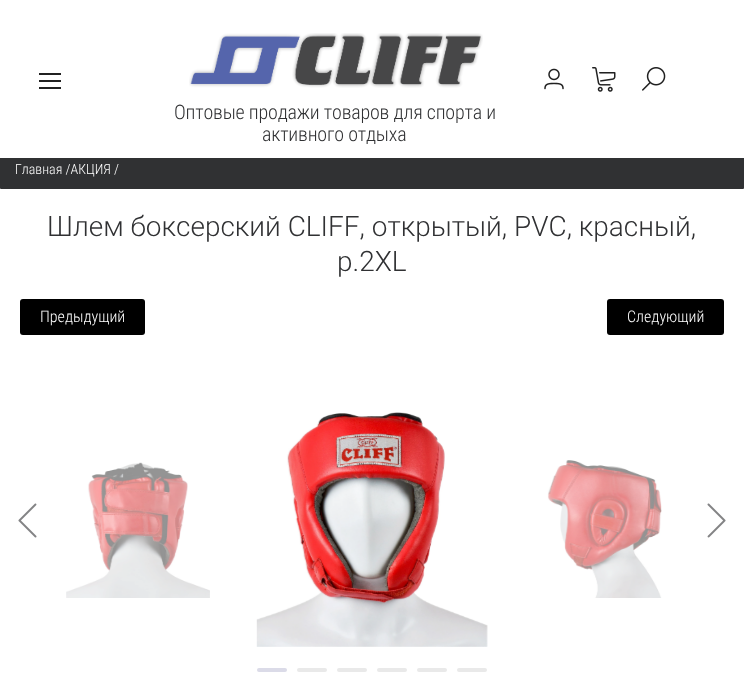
<svg xmlns="http://www.w3.org/2000/svg" width="744" height="674" viewBox="0 0 744 674">
  <style>
    .t1 { font: 300 20px Roboto Condensed; letter-spacing: -0.2px; fill: #303133; }
    .t2 { font: 300 14px Roboto Condensed; fill: #fff; }
    .t3 { font: 300 28px Roboto; fill: #303133; }
    .t4 { font: 300 16px Roboto Condensed; fill: #fff; }
  </style>
  <rect width="100%" height="100%" fill="#fff"/>
  <rect x="0" y="150" width="744" height="39" rx="1" fill="#303133"/>
  <rect x="0" y="150" width="744" height="8" fill="#fff"/>
  <rect x="39" y="80" width="22" height="2" fill="#212121"/>
  <rect x="39" y="73" width="22" height="2" fill="#212121"/>
  <rect x="39" y="87" width="22" height="2" fill="#212121"/>
  <image x="544" y="68" width="20" height="22" href="images/1.png"/>
  <image x="592" y="67" width="24" height="25" href="images/2.png"/>
  <image x="642" y="67" width="24" height="24" href="images/3.png"/>
  <image x="189" y="33" width="294" height="55" href="images/4.png"/>
  <text x="174" y="119" class="t1">Оптовые продажи товаров для спорта и</text>
  <text x="262" y="141" class="t1">активного отдыха</text>
  <text x="15" y="174" class="t2">Главная /АКЦИЯ /</text>
  <text x="47" y="236" class="t3">Шлем боксерский CLIFF, открытый, PVC, красный,</text>
  <text x="337" y="271" class="t3">р.2XL</text>
  <rect x="20" y="299" width="125" height="36" rx="3" fill="#000"/>
  <text x="40" y="322" class="t4">Предыдущий</text>
  <rect x="607" y="299" width="117" height="36" rx="3" fill="#000"/>
  <text x="627" y="322" class="t4">Следующий</text>
  <image x="66" y="462" width="144" height="136" href="images/5.png"/>
  <image x="256" y="412" width="232" height="235" href="images/6.png"/>
  <image x="547" y="460" width="115" height="138" href="images/7.png"/>
  <image x="18" y="503" width="19" height="35" href="images/8.png"/>
  <image x="707" y="503" width="19" height="35" href="images/9.png"/>
  <rect x="257" y="668" width="30" height="4" rx="2" fill="#dbdbe8"/>
  <rect x="297" y="668" width="30" height="4" rx="2" fill="#e9e9e9"/>
  <rect x="337" y="668" width="30" height="4" rx="2" fill="#e9e9e9"/>
  <rect x="377" y="668" width="30" height="4" rx="2" fill="#e9e9e9"/>
  <rect x="417" y="668" width="30" height="4" rx="2" fill="#e9e9e9"/>
  <rect x="457" y="668" width="30" height="4" rx="2" fill="#e9e9e9"/>
</svg>
